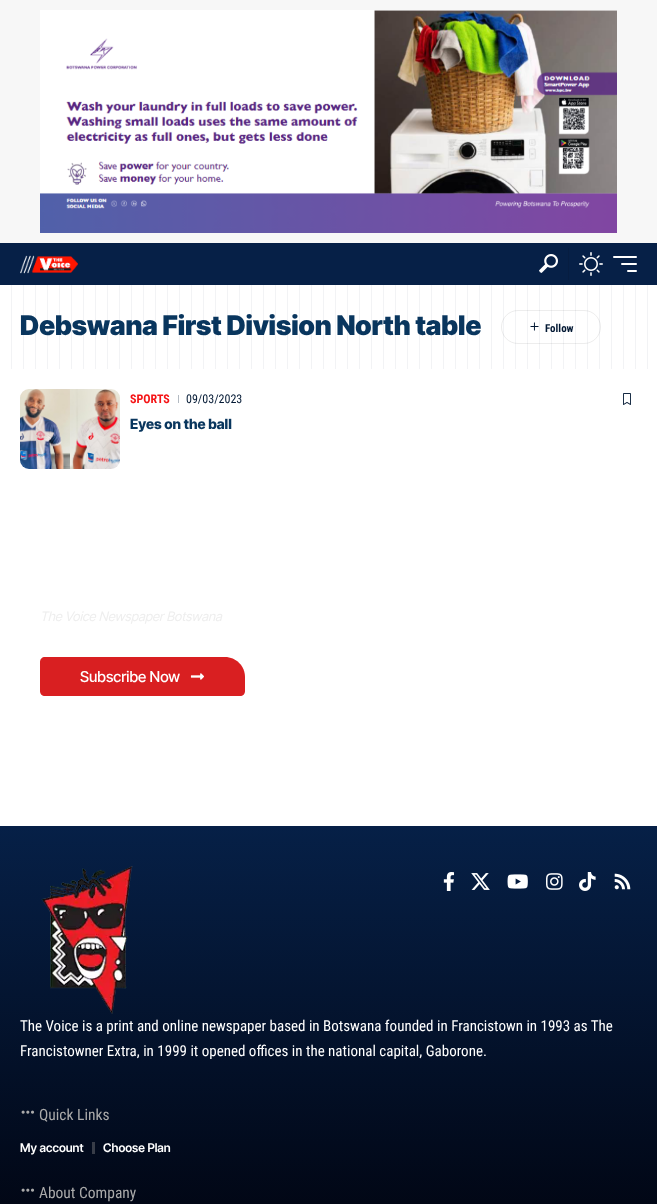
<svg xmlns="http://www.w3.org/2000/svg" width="657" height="1204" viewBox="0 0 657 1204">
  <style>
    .t1 { font: 900 27px Inter Tight; fill: #09365e; }
    .t2 { font: bold 11px Roboto Condensed; fill: #031934; }
    .t3 { font: bold 12px Roboto Condensed; fill: #f51416; }
    .t4 { font: 12px Roboto Condensed; fill: #031934; }
    .t5 { font: 800 14px Inter Tight; fill: #09365e; }
    .t6 { font: italic 13px Inter Tight; fill: #eee; }
    .t7 { font: 500 15px Inter Tight; fill: #fff; }
    .t8 { font: 15px Roboto Condensed; fill: #fff; }
    .t9 { font: 15.5px Roboto Condensed; fill: #aaa; }
    .t10 { font: 600 12px Inter Tight; fill: #fff; }
  </style>
  <defs>
    <linearGradient id="g1" gradientUnits="userSpaceOnUse" x1="328" y1="826" x2="329" y2="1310"><stop offset="0" stop-color="#062047"/><stop offset="1" stop-color="#000008"/></linearGradient>
  </defs>
  <rect width="100%" height="100%" fill="#fff"/>
  <rect x="0" y="0" width="657" height="243" fill="#f7f7f7"/>
  <image x="40" y="10" width="577" height="223" href="images/1.png"/>
  <rect x="0" y="243" width="657" height="42" fill="#062047"/>
  <image x="20" y="255" width="58" height="19" href="images/2.png"/>
  <image x="539" y="254" width="19" height="19" href="images/3.png"/>
  <rect x="568" y="248" width="1" height="32" fill="#061d41"/>
  <image x="579" y="252" width="24" height="24" href="images/4.png"/>
  <rect x="613" y="256" width="24" height="2" rx="1" fill="#fff"/>
  <rect x="621" y="263" width="16" height="2" rx="1" fill="#fff"/>
  <rect x="627" y="270" width="10" height="2" rx="1" fill="#fff"/>
  <text x="20" y="335" class="t1">Debswana First Division North table</text>
  <rect x="501.5" y="310.5" width="99" height="33" rx="16.5" fill="none" stroke="#ededed"/>
  <image x="530" y="322" width="9" height="9" href="images/6.png"/>
  <text x="545" y="332" class="t2">Follow</text>
  <image x="11" y="285" width="637" height="84" href="images/5.png"/>
  <image x="20" y="389" width="100" height="80" href="images/7.png"/>
  <text x="130" y="403" class="t3">SPORTS</text>
  <rect x="178" y="395" width="1" height="8" fill="#b3bac2"/>
  <text x="186" y="403" class="t4">09/03/2023</text>
  <image x="623" y="393" width="8" height="12" href="images/8.png"/>
  <text x="130" y="429" class="t5">Eyes on the ball</text>
  <text x="40" y="621" class="t6">The Voice Newspaper Botswana</text>
  <path d="M45 657H225C236 657 245 666 245 677V691C245 694 243 696 240 696H45C42 696 40 694 40 691V662C40 659 42 657 45 657Z" fill="#d91f21"/>
  <text x="80" y="682" class="t7">Subscribe Now</text>
  <image x="190" y="673" width="14" height="7" href="images/9.png"/>
  <rect x="0" y="826" width="657" height="378" fill="url(#g1)"/>
  <image x="41" y="866" width="92" height="148" href="images/10.png"/>
  <image x="443" y="872" width="12" height="19" href="images/11.png"/>
  <image x="471" y="873" width="19" height="17" href="images/12.png"/>
  <image x="507" y="874" width="21" height="15" href="images/13.png"/>
  <image x="546" y="873" width="17" height="17" href="images/14.png"/>
  <image x="579" y="872" width="17" height="19" href="images/15.png"/>
  <image x="614" y="873" width="17" height="17" href="images/16.png"/>
  <text x="20" y="1031" class="t8">The Voice is a print and online newspaper based in Botswana founded in Francistown in 1993 as The</text>
  <text x="20" y="1056" class="t8">Francistowner Extra, in 1999 it opened offices in the national capital, Gaborone.</text>
  <image x="21" y="1110" width="14" height="4" href="images/17.png"/>
  <text x="39" y="1120" class="t9">Quick Links</text>
  <text x="20" y="1152" class="t10">My account</text>
  <rect x="92" y="1142" width="3" height="12" fill="#383d48"/>
  <text x="103" y="1152" class="t10">Choose Plan</text>
  <image x="21" y="1188" width="14" height="4" href="images/18.png"/>
  <text x="39" y="1198" class="t9">About Company</text>
</svg>
